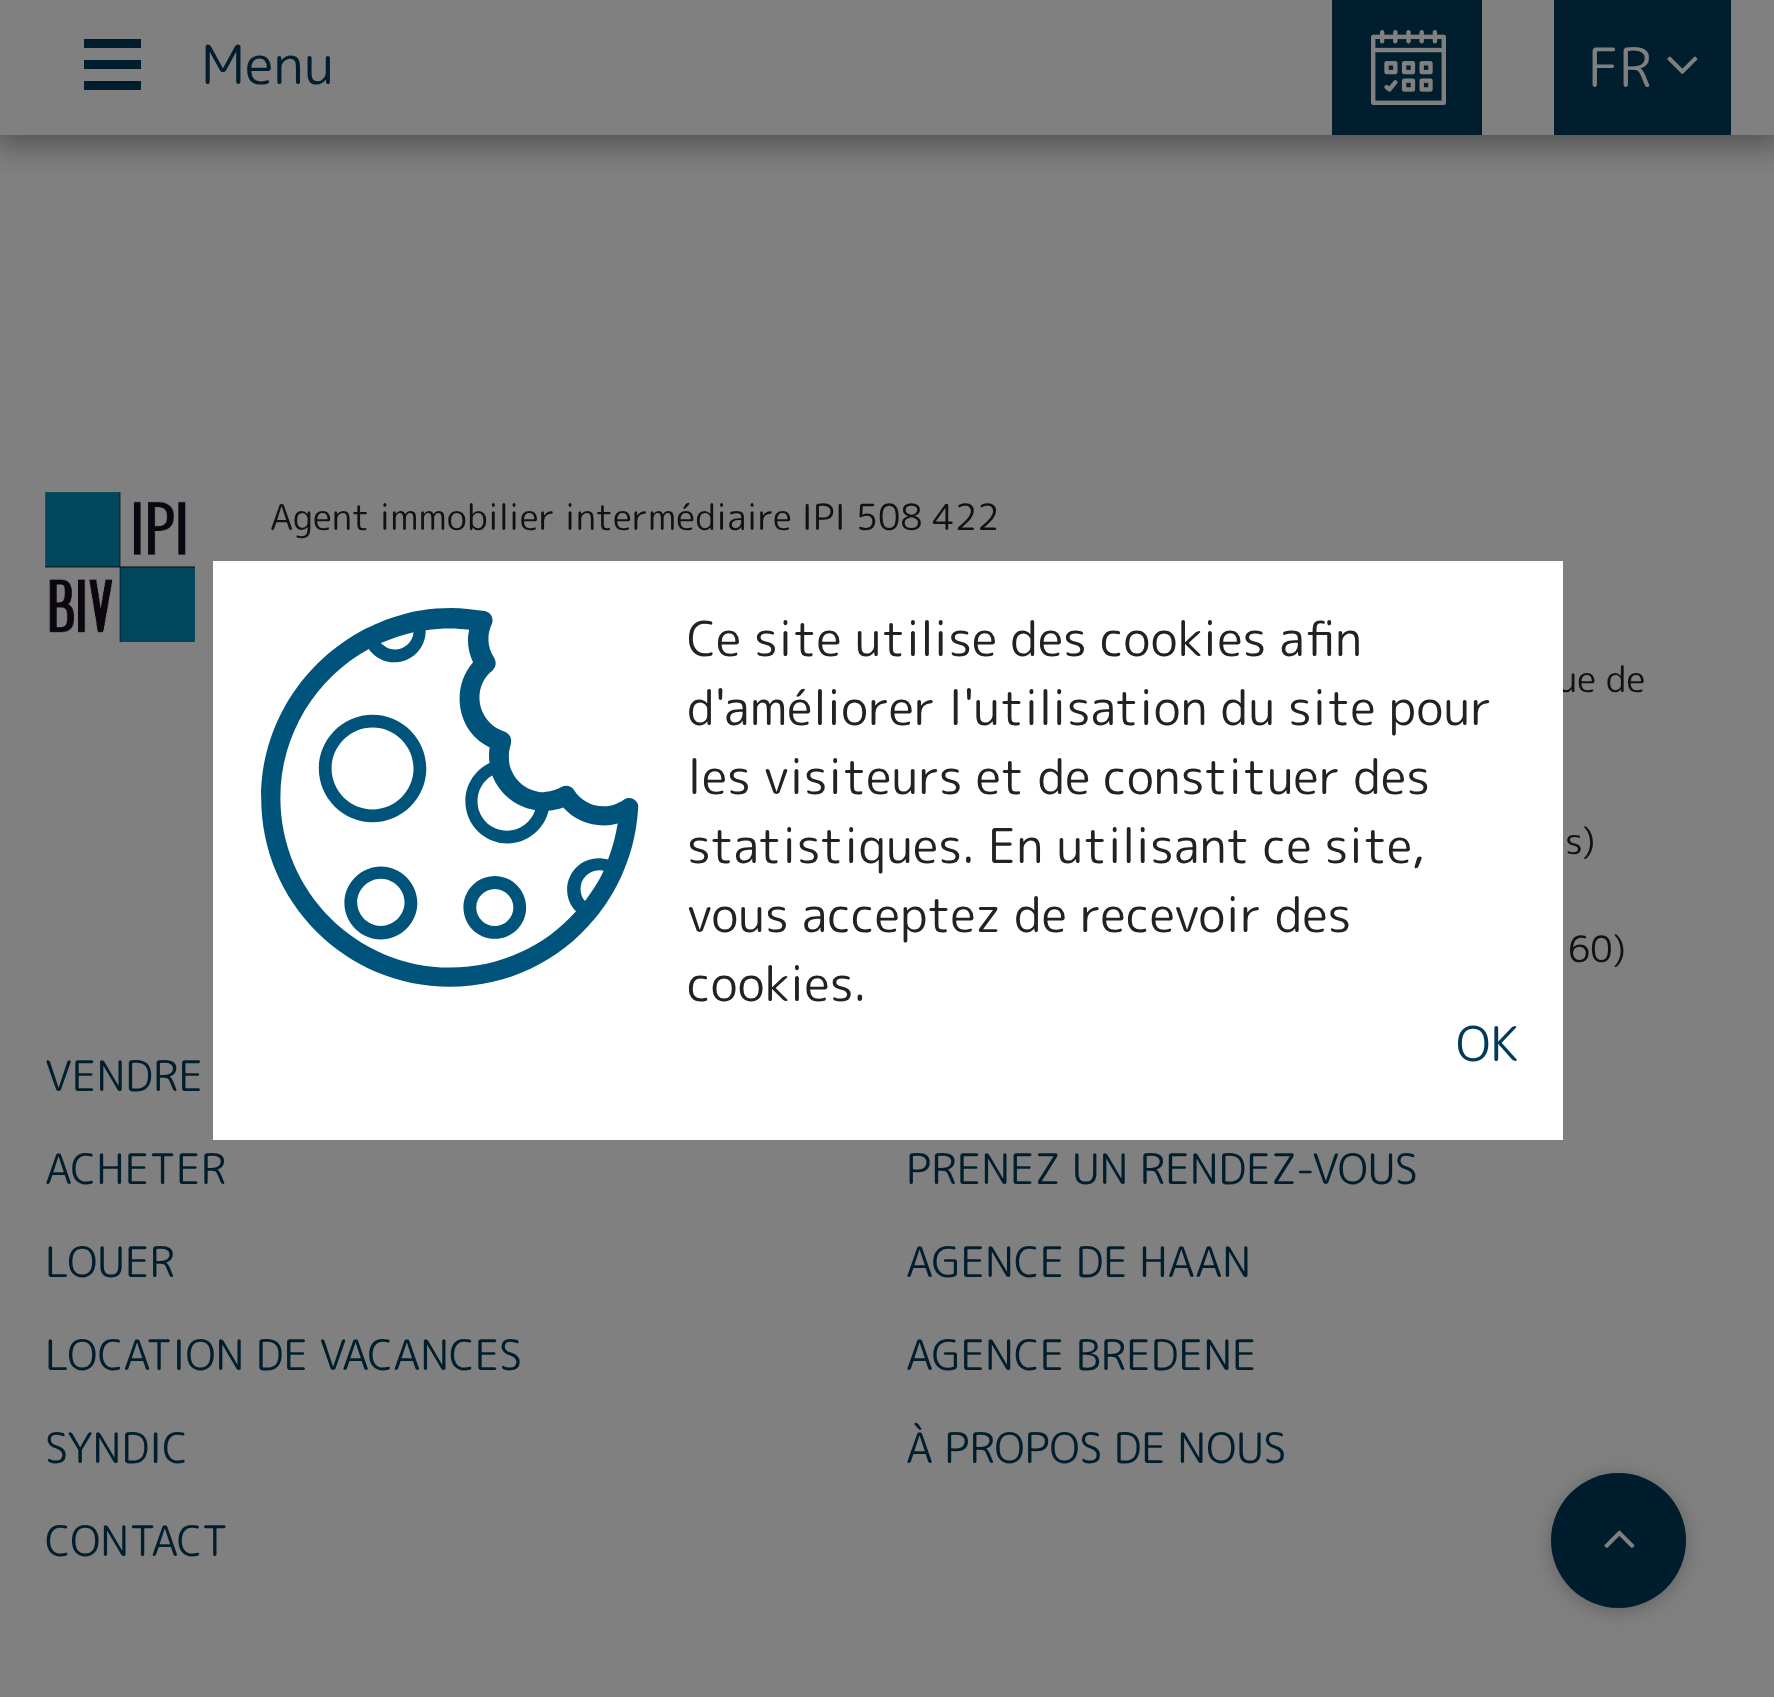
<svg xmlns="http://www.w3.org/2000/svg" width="1774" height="1697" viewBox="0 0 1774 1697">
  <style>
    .t1 { font: 54px 'Rounded Mplus 1c'; fill: #001e2e; }
    .t2 { font: 54px 'Rounded Mplus 1c'; fill: #808080; }
    .t3 { font: 36px 'Rounded Mplus 1c'; fill: #111; }
    .t4 { font: 42px 'Rounded Mplus 1c'; fill: #001e2e; }
    .t5 { font: 48px 'Rounded Mplus 1c'; fill: #222; }
    .t6 { font: 48px 'Rounded Mplus 1c'; fill: #003b5c; }
  </style>
  <defs>
    <clipPath id="clip1"><rect x="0" y="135" width="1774" height="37"/></clipPath>
    <clipPath id="clip2"><path d="M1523 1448H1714V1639H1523ZM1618.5 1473C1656 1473 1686 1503 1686 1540.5C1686 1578 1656 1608 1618.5 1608C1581 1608 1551 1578 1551 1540.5C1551 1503 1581 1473 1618.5 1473Z" clip-rule="evenodd"/></clipPath>
  </defs>
  <rect width="100%" height="100%" fill="#808080"/>
  <g clip-path="url(#clip1)">
    <rect x="-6" y="0" width="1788" height="147" fill="#11111166" filter="blur(15px)"/>
  </g>
  <rect x="84" y="60" width="57" height="9" fill="#001e2e"/>
  <rect x="84" y="39" width="57" height="9" fill="#001e2e"/>
  <rect x="84" y="81" width="57" height="9" fill="#001e2e"/>
  <text x="201" y="84" class="t1">Menu</text>
  <rect x="1332" y="0" width="150" height="135" fill="#001e2e"/>
  <image x="1371" y="30" width="75" height="75" href="images/1.png"/>
  <rect x="1554" y="0" width="177" height="135" fill="#001e2e"/>
  <text x="1588" y="87" class="t2">FR</text>
  <image x="1667" y="56" width="31" height="19" href="images/2.png"/>
  <image x="45" y="492" width="150" height="150" href="images/3.png"/>
  <text x="270" y="530" class="t3">Agent immobilier intermédiaire IPI 508 422</text>
  <text x="1557" y="692" class="t3">ue de</text>
  <text x="1565" y="854" class="t3">s)</text>
  <text x="1568" y="962" class="t3">60)</text>
  <text x="45" y="1091" class="t4">VENDRE</text>
  <text x="45" y="1184" class="t4">ACHETER</text>
  <text x="906" y="1184" class="t4">PRENEZ UN RENDEZ-VOUS</text>
  <text x="45" y="1277" class="t4">LOUER</text>
  <text x="906" y="1277" class="t4">AGENCE DE HAAN</text>
  <text x="45" y="1370" class="t4">LOCATION DE VACANCES</text>
  <text x="906" y="1370" class="t4">AGENCE BREDENE</text>
  <text x="45" y="1463" class="t4">SYNDIC</text>
  <text x="906" y="1463" class="t4">À PROPOS DE NOUS</text>
  <text x="45" y="1556" class="t4">CONTACT</text>
  <circle cx="1618.5" cy="1540.5" r="67.5" fill="#001e2e"/>
  <g clip-path="url(#clip2)">
    <rect x="1551" y="1476" width="135" height="135" rx="67.5" fill="#0000003d" filter="blur(9px)"/>
  </g>
  <circle cx="1618.5" cy="1540.5" r="67.5" fill="#001e2e3d"/>
  <image x="1604" y="1530" width="31" height="18" href="images/4.png"/>
  <rect x="213" y="561" width="1350" height="579" fill="#fff"/>
  <image x="261" y="608" width="378" height="379" href="images/5.png"/>
  <text x="687" y="656" class="t5">Ce site utilise des cookies afin</text>
  <text x="687" y="725" class="t5">d'améliorer l'utilisation du site pour</text>
  <text x="687" y="794" class="t5">les visiteurs et de constituer des</text>
  <text x="687" y="863" class="t5">statistiques. En utilisant ce site,</text>
  <text x="687" y="932" class="t5">vous acceptez de recevoir des</text>
  <text x="687" y="1001" class="t5">cookies.</text>
  <text x="1456" y="1061" class="t6">OK</text>
</svg>
